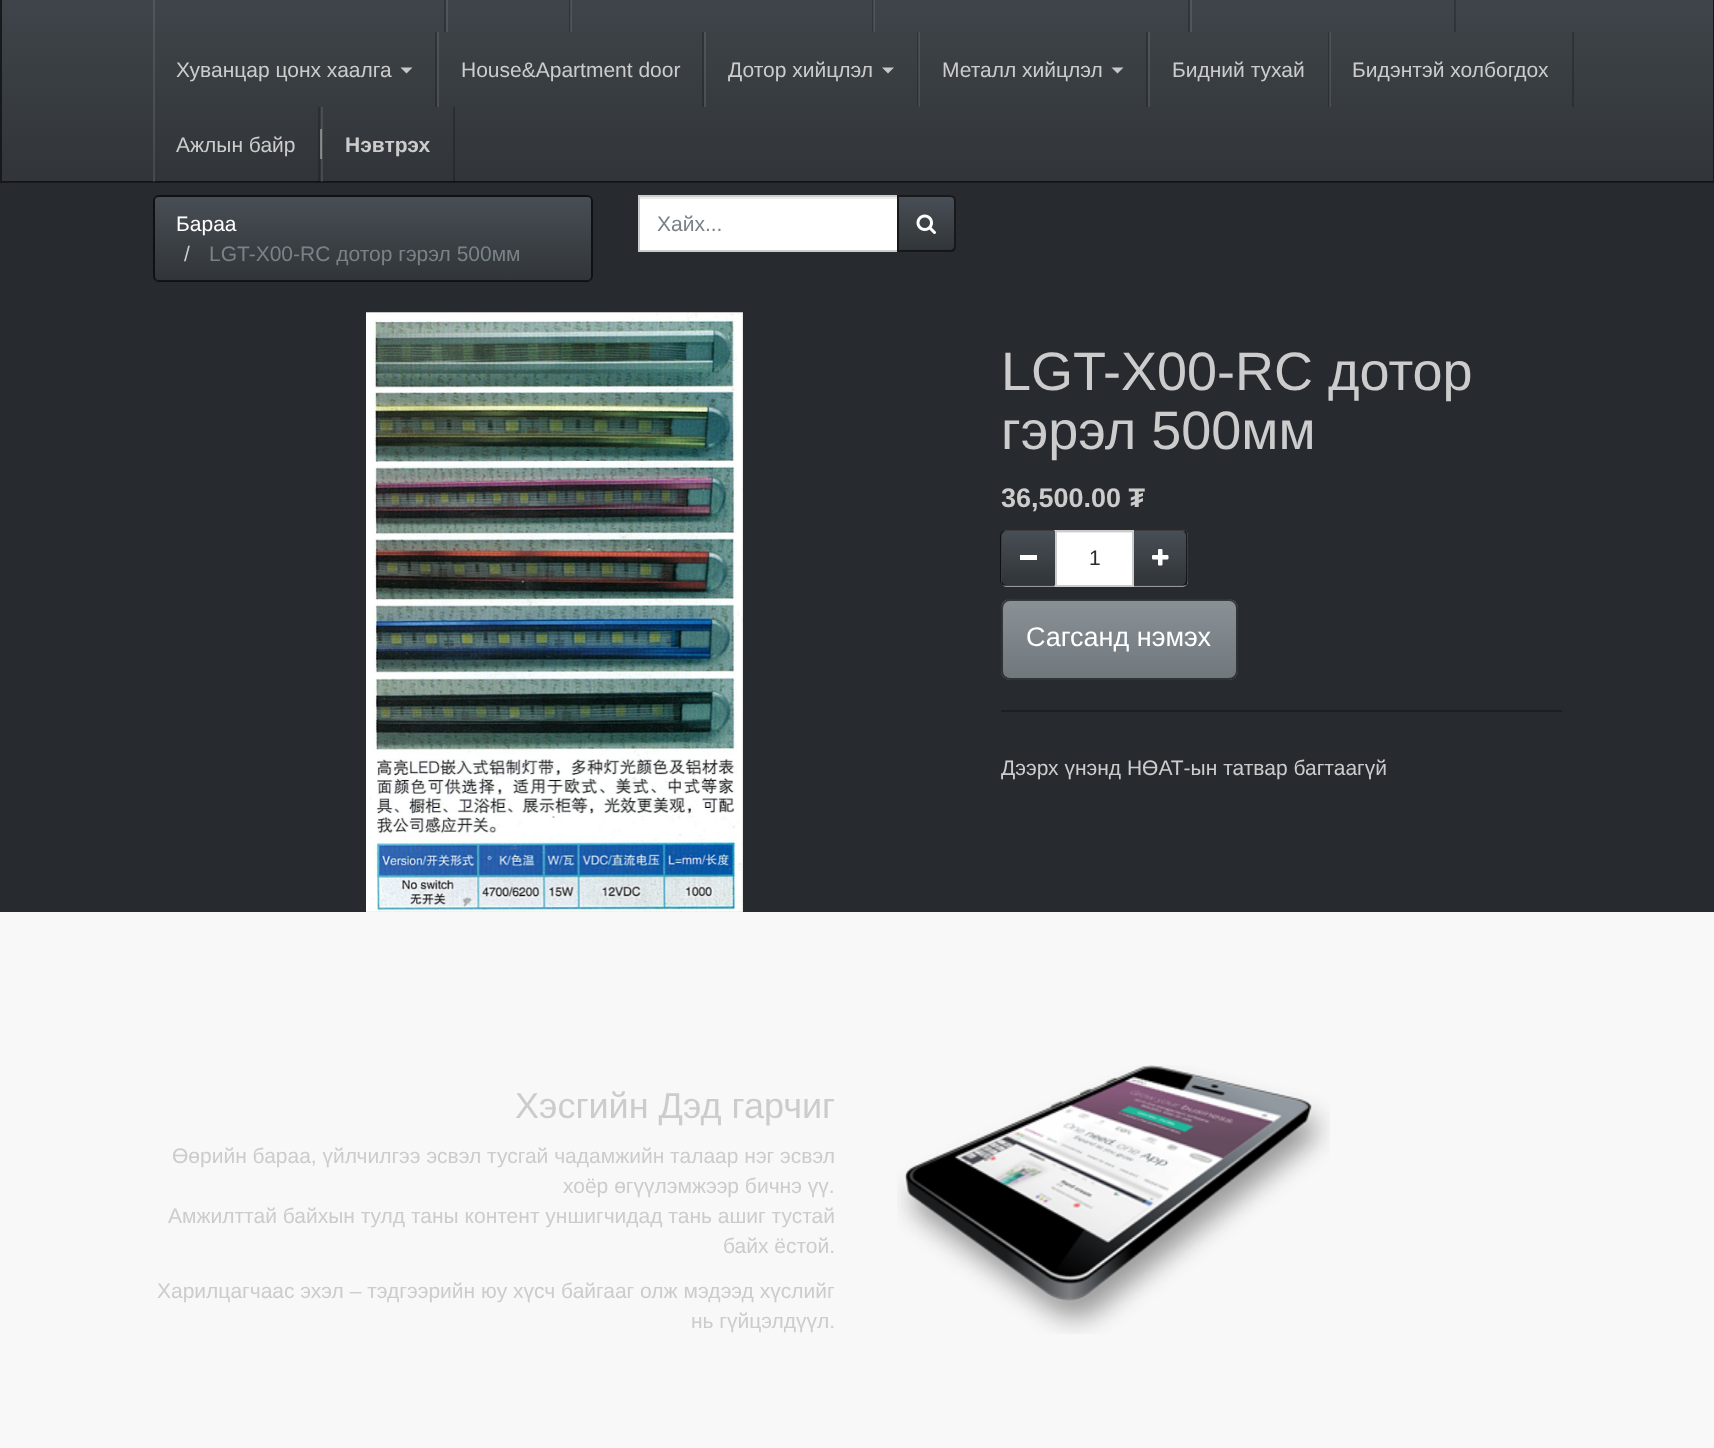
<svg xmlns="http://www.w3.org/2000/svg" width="1714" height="1448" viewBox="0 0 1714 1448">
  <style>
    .t1 { font: 21px Liberation Sans; fill: #ccc; }
    .t2 { font: bold 21px Liberation Sans; fill: #ccc; }
    .t3 { font: 21px Liberation Sans; fill: #fff; }
    .t4 { font: 21px Liberation Sans; fill: #7a8288; }
    .t5 { font: 54px Liberation Sans; fill: #ccc; }
    .t6 { font: bold 27px Liberation Sans; fill: #ccc; }
    .t7 { font: 21px Liberation Sans; fill: #272b30; }
    .t8 { font: 27px Liberation Sans; fill: #fff; }
    .t9 { font: 36px Liberation Sans; fill: #ccc; }
  </style>
  <defs>
    <linearGradient id="g1" gradientUnits="userSpaceOnUse" x1="857" y1="-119" x2="857" y2="182"><stop offset="0" stop-color="#484e55"/><stop offset="0.6" stop-color="#3a3f44"/><stop offset="1" stop-color="#313539"/></linearGradient>
    <linearGradient id="g2" gradientUnits="userSpaceOnUse" x1="857" y1="-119" x2="857" y2="182"><stop offset="0" stop-color="#5a6066"/><stop offset="0.6" stop-color="#4e5257"/><stop offset="1" stop-color="#46494d"/></linearGradient>
    <linearGradient id="g3" gradientUnits="userSpaceOnUse" x1="857" y1="-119" x2="857" y2="182"><stop offset="0" stop-color="#3a3e44"/><stop offset="0.6" stop-color="#2e3236"/><stop offset="1" stop-color="#272a2e"/></linearGradient>
    <linearGradient id="g4" gradientUnits="userSpaceOnUse" x1="857" y1="-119" x2="857" y2="182"><stop offset="0" stop-color="#4e5157"/><stop offset="0.6" stop-color="#43474a"/><stop offset="1" stop-color="#3d3f43"/></linearGradient>
    <linearGradient id="g5" gradientUnits="userSpaceOnUse" x1="373" y1="196" x2="373" y2="281"><stop offset="0" stop-color="#484e55"/><stop offset="0.6" stop-color="#3a3f44"/><stop offset="1" stop-color="#313539"/></linearGradient>
    <linearGradient id="g6" gradientUnits="userSpaceOnUse" x1="926" y1="197" x2="926" y2="251"><stop offset="0" stop-color="#484e55"/><stop offset="0.6" stop-color="#3a3f44"/><stop offset="1" stop-color="#313539"/></linearGradient>
    <clipPath id="clip1"><path d="M1007 530H1055V587H1007C1003.5 587 1001 584.5 1001 581V536C1001 532.5 1003.5 530 1007 530Z"/></clipPath>
    <linearGradient id="g7" gradientUnits="userSpaceOnUse" x1="1028" y1="531" x2="1028" y2="585"><stop offset="0" stop-color="#484e55"/><stop offset="0.6" stop-color="#3a3f44"/><stop offset="1" stop-color="#313539"/></linearGradient>
    <clipPath id="clip2"><path d="M1134 530H1182C1185.5 530 1188 532.5 1188 536V581C1188 584.5 1185.5 587 1182 587H1134Z"/></clipPath>
    <linearGradient id="g8" gradientUnits="userSpaceOnUse" x1="1160" y1="531" x2="1160" y2="585"><stop offset="0" stop-color="#484e55"/><stop offset="0.6" stop-color="#3a3f44"/><stop offset="1" stop-color="#313539"/></linearGradient>
    <clipPath id="clip3"><rect x="1001" y="599" width="237" height="81" rx="9"/></clipPath>
    <linearGradient id="g9" gradientUnits="userSpaceOnUse" x1="1119" y1="600" x2="1119" y2="678"><stop offset="0" stop-color="#8a9196"/><stop offset="0.6" stop-color="#7a8288"/><stop offset="1" stop-color="#70787d"/></linearGradient>
  </defs>
  <rect width="100%" height="100%" fill="#272b30"/>
  <rect x="0" y="0" width="1714" height="183" fill="#3a3f44"/>
  <rect x="2" y="0" width="1711" height="182" fill="url(#g1)"/>
  <rect x="1330" y="32" width="1" height="75" fill="url(#g2)"/>
  <rect x="1572" y="32" width="2" height="75" fill="url(#g3)"/>
  <rect x="1148" y="32" width="2" height="75" fill="url(#g2)"/>
  <rect x="1328" y="32" width="1" height="75" fill="url(#g3)"/>
  <rect x="1329" y="32" width="1" height="75" fill="url(#g4)"/>
  <rect x="919" y="32" width="1" height="75" fill="url(#g2)"/>
  <rect x="1146" y="32" width="2" height="75" fill="url(#g3)"/>
  <rect x="704" y="32" width="2" height="75" fill="url(#g2)"/>
  <rect x="917" y="32" width="1" height="75" fill="url(#g3)"/>
  <rect x="918" y="32" width="1" height="75" fill="url(#g4)"/>
  <rect x="437" y="32" width="2" height="75" fill="url(#g2)"/>
  <rect x="702" y="32" width="2" height="75" fill="url(#g3)"/>
  <rect x="153" y="32" width="2" height="75" fill="url(#g2)"/>
  <rect x="435" y="32" width="2" height="75" fill="url(#g3)"/>
  <rect x="1190" y="0" width="2" height="32" fill="url(#g2)"/>
  <rect x="1454" y="0" width="2" height="32" fill="url(#g3)"/>
  <rect x="874" y="0" width="1" height="32" fill="url(#g2)"/>
  <rect x="1188" y="0" width="2" height="32" fill="url(#g3)"/>
  <rect x="571" y="0" width="1" height="32" fill="url(#g2)"/>
  <rect x="872" y="0" width="1" height="32" fill="url(#g3)"/>
  <rect x="873" y="0" width="1" height="32" fill="url(#g4)"/>
  <rect x="446" y="0" width="2" height="32" fill="url(#g2)"/>
  <rect x="569" y="0" width="1" height="32" fill="url(#g3)"/>
  <rect x="570" y="0" width="1" height="32" fill="url(#g4)"/>
  <rect x="153" y="0" width="2" height="32" fill="url(#g2)"/>
  <rect x="444" y="0" width="2" height="32" fill="url(#g3)"/>
  <rect x="1" y="-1" width="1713" height="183" fill="none" stroke="#00000099" stroke-width="2"/>
  <text x="176" y="77" class="t1">Хуванцар цонх хаалга</text>
  <path d="M400.5 67.5H412.5L406.5 73.5Z" fill="#c8c8c8"/>
  <text x="461" y="77" class="t1">House&amp;Apartment door</text>
  <text x="728" y="77" class="t1">Дотор хийцлэл</text>
  <path d="M882 67.5H894L888 73.5Z" fill="#c8c8c8"/>
  <text x="942" y="77" class="t1">Металл хийцлэл</text>
  <path d="M1111.5 67.5H1123.5L1117.5 73.5Z" fill="#c8c8c8"/>
  <text x="1172" y="77" class="t1">Бидний тухай</text>
  <text x="1352" y="77" class="t1">Бидэнтэй холбогдох</text>
  <rect x="318" y="107" width="2" height="75" fill="#00000033"/>
  <rect x="153" y="107" width="2" height="75" fill="#ffffff1a"/>
  <text x="176" y="152" class="t1">Ажлын байр</text>
  <rect x="320" y="129" width="2" height="30" fill="#808080"/>
  <rect x="453" y="107" width="2" height="75" fill="#00000033"/>
  <rect x="321" y="107" width="2" height="75" fill="#ffffff1a"/>
  <text x="345" y="152" class="t2">Нэвтрэх</text>
  <rect x="155" y="197" width="436" height="84" fill="url(#g5)"/>
  <rect x="154" y="196" width="438" height="85" rx="5" fill="none" stroke="#00000099" stroke-width="2"/>
  <text x="176" y="231" class="t3">Бараа</text>
  <text x="184" y="261" class="t1">/</text>
  <text x="209" y="261" class="t4">LGT-X00-RC дотор гэрэл 500мм</text>
  <rect x="640" y="199" width="257" height="51" fill="#fff"/>
  <rect x="639" y="197" width="258" height="2" fill="#ececec"/>
  <rect x="639" y="196" width="259" height="55" fill="none" stroke="#ccc" stroke-width="2"/>
  <text x="657" y="231" class="t4">Хайх...</text>
  <path d="M897 195H950C953.5 195 956 197.5 956 201V246C956 249.5 953.5 252 950 252H897Z" fill="#3a3f44"/>
  <rect x="899" y="197" width="55" height="54" fill="url(#g6)"/>
  <path d="M898 196H950C953 196 955 198 955 201V246C955 249 953 251 950 251H898Z" fill="none" stroke="#00000099" stroke-width="2"/>
  <image x="916" y="214" width="20" height="20" href="images/1.png"/>
  <image x="366" y="312" width="377" height="600" href="images/2.png"/>
  <text x="1001" y="390" class="t5">LGT-X00-RC дотор</text>
  <text x="1001" y="449" class="t5">гэрэл 500мм</text>
  <text x="1001" y="507" class="t6">36,500.00 ₮</text>
  <path d="M1007 530H1055V587H1007C1003.5 587 1001 584.5 1001 581V536C1001 532.5 1003.5 530 1007 530Z" fill="#999"/>
  <g clip-path="url(#clip1)">
    <rect x="1002" y="531" width="53" height="54" fill="url(#g7)"/>
  </g>
  <path d="M1006 530H1054V586H1006C1003 586 1000 584 1000 580V536C1000 532 1003 530 1006 530ZM1006 531H1054V585H1006C1004 585 1002 583 1002 580V536C1002 533 1004 531 1006 531Z" fill="#00000099" fill-rule="evenodd"/>
  <rect x="1020" y="555" width="17" height="5" fill="#fff"/>
  <rect x="1057" y="533" width="75" height="52" fill="#fff"/>
  <rect x="1056" y="532" width="77" height="1" fill="#ececec"/>
  <rect x="1056" y="531" width="77" height="55" fill="none" stroke="#ccc" stroke-width="2"/>
  <text x="1089" y="565" class="t7">1</text>
  <path d="M1134 530H1182C1185.5 530 1188 532.5 1188 536V581C1188 584.5 1185.5 587 1182 587H1134Z" fill="#999"/>
  <g clip-path="url(#clip2)">
    <rect x="1134" y="531" width="53" height="54" fill="url(#g8)"/>
  </g>
  <path d="M1134 530H1182C1185 530 1188 532 1188 536V580C1188 584 1185 586 1182 586H1134ZM1134 531H1182C1184 531 1186 533 1186 536V580C1186 583 1184 585 1182 585H1134Z" fill="#00000099" fill-rule="evenodd"/>
  <image x="1152" y="549" width="17" height="17" href="images/3.png"/>
  <rect x="1001" y="599" width="237" height="81" rx="9" fill="#7a8288"/>
  <g clip-path="url(#clip3)">
    <rect x="1002" y="600" width="234" height="78" fill="url(#g9)"/>
  </g>
  <rect x="1002" y="600" width="235" height="79" rx="8" fill="none" stroke="#00000099" stroke-width="2"/>
  <text x="1026" y="646" class="t8">Сагсанд нэмэх</text>
  <rect x="1001" y="710" width="561" height="2" fill="#1c1e22"/>
  <text x="1001" y="775" class="t1">Дээрх үнэнд НӨАТ-ын татвар багтаагүй</text>
  <rect x="0" y="912" width="1714" height="536" fill="#f8f8f8"/>
  <text x="515" y="1118" class="t9">Хэсгийн Дэд гарчиг</text>
  <text x="172" y="1163" class="t1">Өөрийн бараа, үйлчилгээ эсвэл тусгай чадамжийн талаар нэг эсвэл</text>
  <text x="563" y="1193" class="t1">хоёр өгүүлэмжээр бичнэ үү.</text>
  <text x="168" y="1223" class="t1">Амжилттай байхын тулд таны контент уншигчидад тань ашиг тустай</text>
  <text x="723" y="1253" class="t1">байх ёстой.</text>
  <text x="157" y="1298" class="t1">Харилцагчаас эхэл – тэдгээрийн юу хүсч байгааг олж мэдээд хүслийг</text>
  <text x="691" y="1328" class="t1">нь гүйцэлдүүл.</text>
  <image x="897" y="1065" width="433" height="269" href="images/4.png"/>
</svg>
